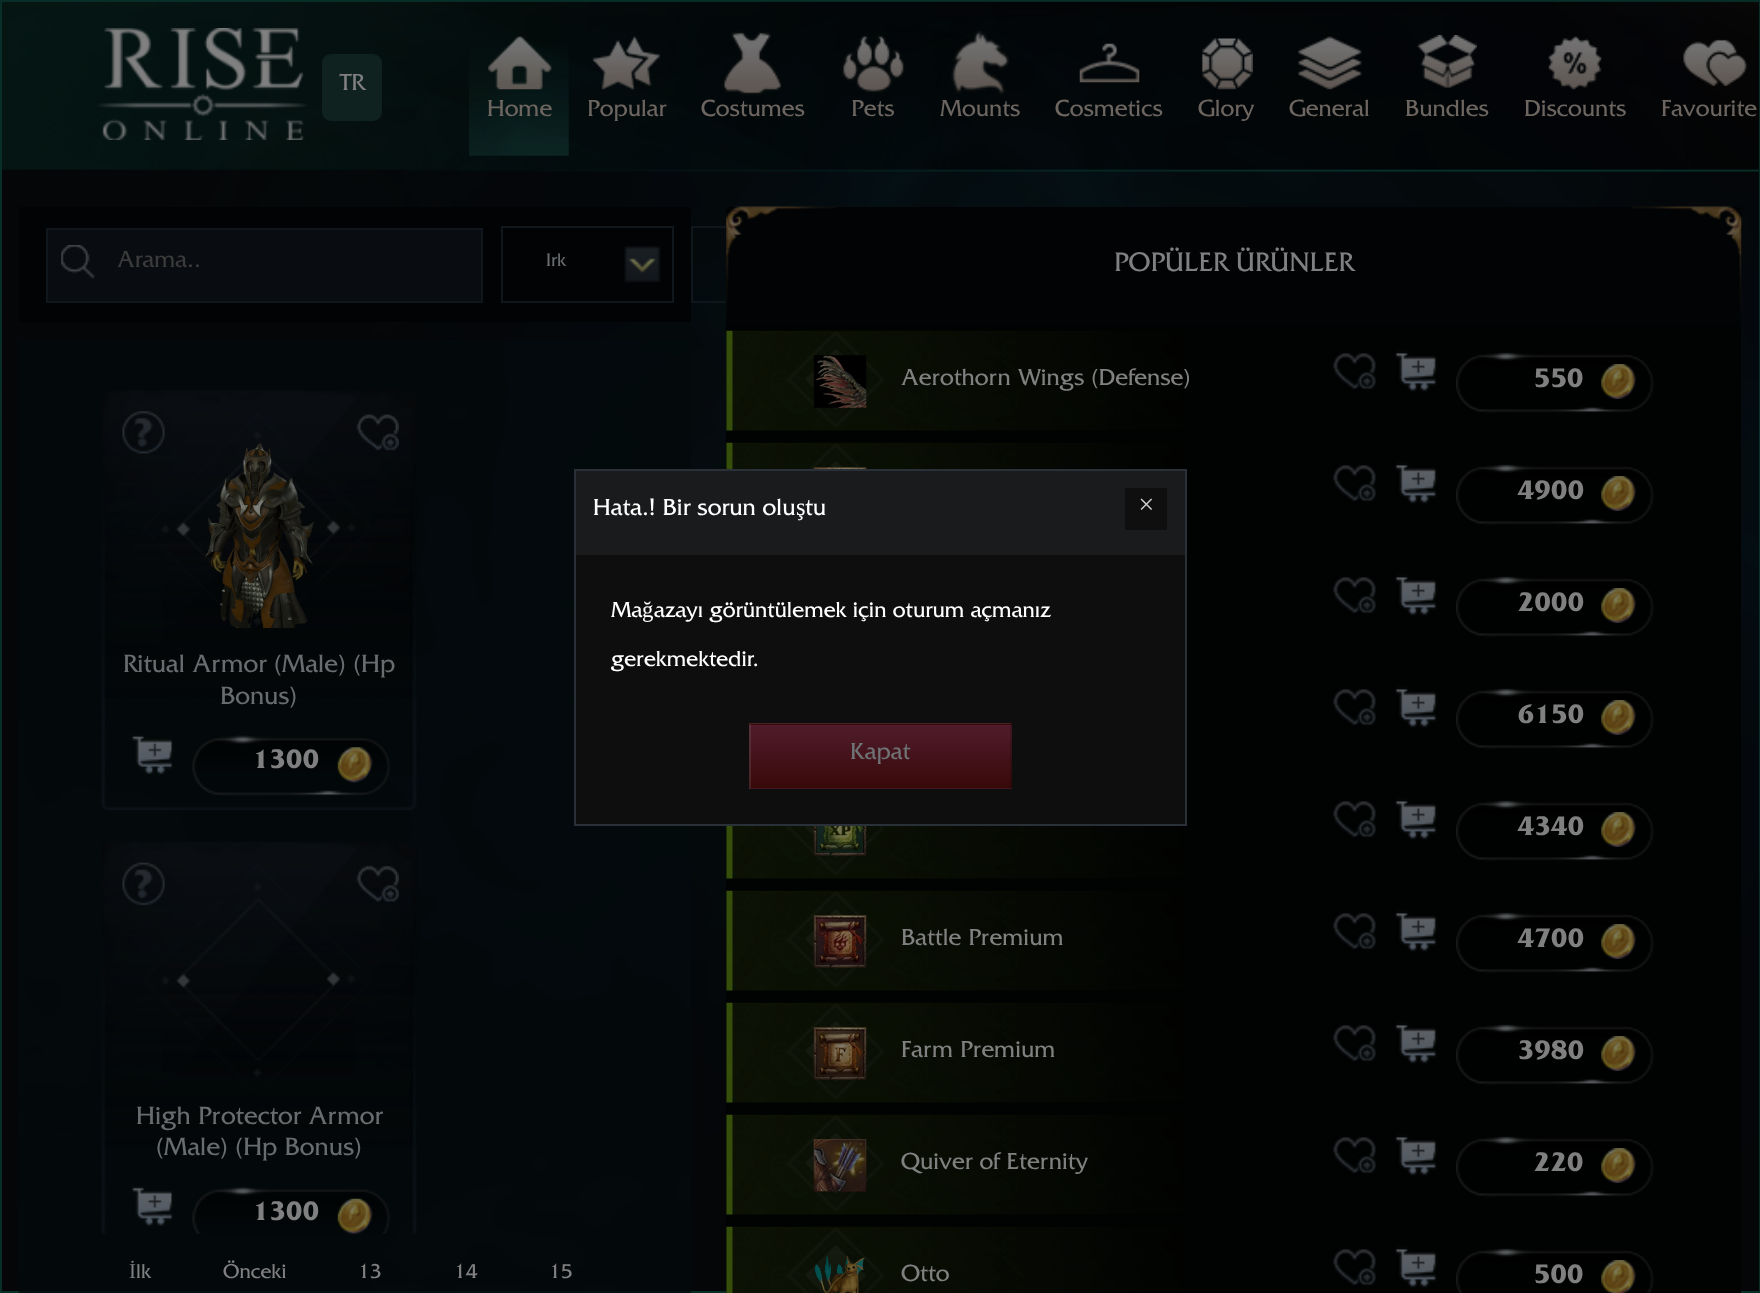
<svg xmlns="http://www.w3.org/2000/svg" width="1760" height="1293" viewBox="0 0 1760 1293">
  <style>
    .t1 { font: 500 24.5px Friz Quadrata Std; fill: #808080; }
    .t2 { font: 500 24.5px Friz Quadrata Std; fill: #6c6560; }
    .t3 { font: 500 24.5px Friz Quadrata Std; fill: #3b3b3b; }
    .t4 { font: 500 19px Friz Quadrata Std; fill: #686c6e; }
    .t5 { font: 500 26.25px Friz Quadrata Std; fill: #686c6e; }
    .t6 { font: bold 28px Friz Quadrata Std; letter-spacing: 1px; fill: #808080; }
    .t7 { font: 21px Liberation Serif; fill: #808080; }
    .t8 { font: 500 21px Friz Quadrata Std; fill: #808080; }
    .t9 { font: 500 28px Friz Quadrata Std; fill: #808080; }
    .t10 { font: 500 24.5px Friz Quadrata Std; fill: #fff; }
    .t11 { font: 24.5px Liberation Serif; fill: #fff; }
    .t12 { font: 500 24.5px Friz Quadrata Std; fill: #cfcfcf; }
    .t13 { font: 500 22.75px Friz Quadrata Std; fill: #fff; }
    .t14 { font: 22.75px Liberation Serif; fill: #fff; }
    .t15 { font: 500 24.5px Friz Quadrata Std; fill: #6f7375; }
  </style>
  <defs>
    <linearGradient id="g1" gradientUnits="userSpaceOnUse" x1="880" y1="662" x2="880" y2="725"><stop offset="0" stop-color="#501c2c"/><stop offset="1" stop-color="#380909"/></linearGradient>
    <linearGradient id="g2" gradientUnits="userSpaceOnUse" x1="880" y1="725" x2="880" y2="788"><stop offset="0" stop-color="#501c2c"/><stop offset="1" stop-color="#380909"/></linearGradient>
    <linearGradient id="g3" gradientUnits="userSpaceOnUse" x1="880" y1="788" x2="880" y2="851"><stop offset="0" stop-color="#501c2c"/><stop offset="1" stop-color="#380909"/></linearGradient>
  </defs>
  <rect width="100%" height="100%" fill="#fff"/>
  <image x="0" y="0" width="1760" height="1293" href="images/1.png"/>
  <rect x="1" y="1" width="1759" height="1291" fill="none" stroke="#0d5e4e75" stroke-width="2"/>
  <image x="2" y="1" width="1757" height="171" href="images/2.png"/>
  <image x="97" y="28" width="211" height="112" href="images/3.png"/>
  <rect x="322" y="54" width="60" height="67" rx="9" fill="#0f2220"/>
  <text x="340" y="90" class="t1">TR</text>
  <image x="469" y="45" width="100" height="111" href="images/4.png"/>
  <image x="488" y="36" width="64" height="54" href="images/5.png"/>
  <text x="487" y="116" class="t2">Home</text>
  <image x="592" y="36" width="68" height="54" href="images/6.png"/>
  <text x="587" y="116" class="t2">Popular</text>
  <image x="721" y="31" width="62" height="65" href="images/7.png"/>
  <text x="701" y="116" class="t2">Costumes</text>
  <image x="840" y="34" width="65" height="59" href="images/8.png"/>
  <text x="851" y="116" class="t2">Pets</text>
  <image x="951" y="30" width="59" height="66" href="images/9.png"/>
  <text x="940" y="116" class="t2">Mounts</text>
  <image x="1079" y="43" width="61" height="40" href="images/10.png"/>
  <text x="1055" y="116" class="t2">Cosmetics</text>
  <image x="1201" y="38" width="52" height="52" href="images/11.png"/>
  <text x="1198" y="116" class="t2">Glory</text>
  <image x="1298" y="36" width="64" height="54" href="images/12.png"/>
  <text x="1289" y="116" class="t2">General</text>
  <image x="1417" y="35" width="60" height="53" href="images/13.png"/>
  <text x="1405" y="116" class="t2">Bundles</text>
  <image x="1548" y="36" width="54" height="54" href="images/14.png"/>
  <text x="1524" y="116" class="t2">Discounts</text>
  <image x="1683" y="39" width="64" height="47" href="images/15.png"/>
  <text x="1661" y="116" class="t2">Favourite</text>
  <rect x="19" y="207" width="672" height="115" fill="#020304"/>
  <rect x="47" y="229" width="435" height="73" fill="#090c10" stroke="#0f171d" stroke-width="2"/>
  <image x="61" y="245" width="34" height="34" href="images/16.png"/>
  <text x="117" y="267" class="t3">Arama..</text>
  <rect x="502" y="227" width="171" height="75" fill="none" stroke="#0f171d" stroke-width="2"/>
  <text x="546" y="266" class="t4">Irk</text>
  <image x="624" y="245" width="37" height="38" href="images/17.png"/>
  <rect x="692" y="227" width="184" height="75" fill="none" stroke="#0f171d" stroke-width="2"/>
  <rect x="19" y="340" width="672" height="953" fill="#040a0ccc"/>
  <image x="102" y="390" width="315" height="309" href="images/18.png"/>
  <image x="122" y="410" width="43" height="44" href="images/19.png"/>
  <image x="162" y="521" width="254" height="121" href="images/22.png"/>
  <image x="101" y="484" width="316" height="327" href="images/21.png"/>
  <image x="204" y="442" width="111" height="187" href="images/20.png"/>
  <image x="356" y="414" width="43" height="37" href="images/23.png"/>
  <text x="123" y="672" class="t5">Ritual Armor (Male) (Hp</text>
  <text x="220" y="704" class="t5">Bonus)</text>
  <image x="130" y="734" width="45" height="41" href="images/24.png"/>
  <image x="192" y="735" width="199" height="61" href="images/25.png"/>
  <text x="253" y="768" class="t6">1300</text>
  <image x="337" y="747" width="36" height="36" href="images/26.png"/>
  <image x="102" y="842" width="315" height="305" href="images/27.png"/>
  <image x="122" y="862" width="43" height="44" href="images/28.png"/>
  <image x="162" y="972" width="193" height="104" href="images/30.png"/>
  <image x="101" y="935" width="316" height="299" href="images/29.png"/>
  <image x="356" y="865" width="43" height="37" href="images/31.png"/>
  <text x="136" y="1124" class="t5">High Protector Armor</text>
  <text x="156" y="1155" class="t5">(Male) (Hp Bonus)</text>
  <image x="131" y="1186" width="44" height="41" href="images/32.png"/>
  <image x="192" y="1186" width="199" height="48" href="images/33.png"/>
  <text x="253" y="1220" class="t6">1300</text>
  <image x="337" y="1198" width="36" height="36" href="images/34.png"/>
  <text x="129" y="1278" class="t7">İ</text>
  <text x="136" y="1278" class="t8">lk</text>
  <text x="223" y="1278" class="t8">Önceki</text>
  <text x="358" y="1278" class="t8">13</text>
  <text x="454" y="1278" class="t8">14</text>
  <text x="549" y="1278" class="t8">15</text>
  <rect x="726" y="326" width="1015" height="967" fill="#010202"/>
  <rect x="726" y="207" width="1015" height="119" fill="#010304"/>
  <image x="726" y="206" width="111" height="111" href="images/35.png"/>
  <text x="1114" y="271" class="t9">POPÜLER ÜRÜNLER</text>
  <image x="1631" y="206" width="111" height="111" href="images/36.png"/>
  <image x="726" y="330" width="456" height="101" href="images/37.png"/>
  <image x="813" y="355" width="54" height="53" href="images/38.png"/>
  <text x="901" y="385" class="t1">Aerothorn Wings (Defense)</text>
  <image x="1332" y="351" width="44" height="40" href="images/39.png"/>
  <image x="1393" y="350" width="45" height="42" href="images/40.png"/>
  <image x="1456" y="352" width="198" height="61" href="images/41.png"/>
  <text x="1534" y="387" class="t6">550</text>
  <image x="1601" y="364" width="36" height="35" href="images/42.png"/>
  <image x="726" y="442" width="456" height="27" href="images/43.png"/>
  <image x="813" y="467" width="54" height="2" href="images/44.png"/>
  <image x="1332" y="463" width="44" height="40" href="images/39.png"/>
  <image x="1393" y="462" width="45" height="42" href="images/40.png"/>
  <image x="1456" y="464" width="198" height="61" href="images/41.png"/>
  <text x="1518" y="499" class="t6">4900</text>
  <image x="1601" y="476" width="36" height="35" href="images/42.png"/>
  <image x="1332" y="575" width="44" height="40" href="images/39.png"/>
  <image x="1393" y="574" width="45" height="42" href="images/40.png"/>
  <image x="1456" y="576" width="198" height="61" href="images/41.png"/>
  <text x="1518" y="611" class="t6">2000</text>
  <image x="1601" y="588" width="36" height="35" href="images/42.png"/>
  <image x="1332" y="687" width="44" height="40" href="images/39.png"/>
  <image x="1393" y="686" width="45" height="42" href="images/40.png"/>
  <image x="1456" y="688" width="198" height="61" href="images/41.png"/>
  <text x="1518" y="723" class="t6">6150</text>
  <image x="1601" y="700" width="36" height="35" href="images/42.png"/>
  <image x="726" y="826" width="456" height="53" href="images/45.png"/>
  <image x="813" y="826" width="54" height="30" href="images/46.png"/>
  <image x="1332" y="799" width="44" height="40" href="images/39.png"/>
  <image x="1393" y="798" width="45" height="42" href="images/40.png"/>
  <image x="1456" y="800" width="198" height="61" href="images/41.png"/>
  <text x="1518" y="835" class="t6">4340</text>
  <image x="1601" y="812" width="36" height="35" href="images/42.png"/>
  <image x="726" y="890" width="456" height="101" href="images/37.png"/>
  <image x="813" y="915" width="54" height="53" href="images/47.png"/>
  <text x="901" y="945" class="t1">Battle Premium</text>
  <image x="1332" y="911" width="44" height="40" href="images/39.png"/>
  <image x="1393" y="910" width="45" height="42" href="images/40.png"/>
  <image x="1456" y="912" width="198" height="61" href="images/41.png"/>
  <text x="1518" y="947" class="t6">4700</text>
  <image x="1601" y="924" width="36" height="35" href="images/42.png"/>
  <image x="726" y="1002" width="456" height="101" href="images/37.png"/>
  <image x="813" y="1027" width="54" height="53" href="images/48.png"/>
  <text x="901" y="1057" class="t1">Farm Premium</text>
  <image x="1332" y="1023" width="44" height="40" href="images/39.png"/>
  <image x="1393" y="1022" width="45" height="42" href="images/40.png"/>
  <image x="1456" y="1024" width="198" height="61" href="images/41.png"/>
  <text x="1518" y="1059" class="t6">3980</text>
  <image x="1601" y="1036" width="36" height="35" href="images/42.png"/>
  <image x="726" y="1114" width="456" height="101" href="images/37.png"/>
  <image x="813" y="1139" width="54" height="53" href="images/49.png"/>
  <text x="901" y="1169" class="t1">Quiver of Eternity</text>
  <image x="1332" y="1135" width="44" height="40" href="images/39.png"/>
  <image x="1393" y="1134" width="45" height="42" href="images/40.png"/>
  <image x="1456" y="1136" width="198" height="61" href="images/41.png"/>
  <text x="1534" y="1171" class="t6">220</text>
  <image x="1601" y="1148" width="36" height="35" href="images/42.png"/>
  <image x="726" y="1226" width="456" height="67" href="images/50.png"/>
  <image x="814" y="1255" width="51" height="38" href="images/51.png"/>
  <text x="901" y="1281" class="t1">Otto</text>
  <image x="1332" y="1247" width="44" height="40" href="images/39.png"/>
  <image x="1393" y="1246" width="45" height="42" href="images/40.png"/>
  <image x="1456" y="1248" width="198" height="45" href="images/52.png"/>
  <text x="1534" y="1283" class="t6">500</text>
  <image x="1601" y="1260" width="36" height="33" href="images/53.png"/>
  <rect x="576" y="555" width="609" height="269" fill="#0e0e0e"/>
  <rect x="575" y="470" width="611" height="355" fill="none" stroke="#293037" stroke-width="2"/>
  <rect x="576" y="471" width="609" height="84" fill="#191b1c"/>
  <text x="593" y="515" class="t10">Hata.! Bir sorun olu</text>
  <text x="796" y="515" class="t11">ş</text>
  <text x="805" y="515" class="t10">tu</text>
  <rect x="1125" y="488" width="42" height="42" fill="#0f0f10"/>
  <text x="1139" y="510" class="t12">×</text>
  <text x="611" y="617" class="t13">Ma</text>
  <text x="642" y="617" class="t14">ğ</text>
  <text x="654" y="617" class="t13">azayı görüntülemek için oturum açmanız</text>
  <text x="611" y="666" class="t13">gerekmektedir.</text>
  <rect x="749" y="723" width="263" height="2" fill="url(#g1)"/>
  <rect x="749" y="725" width="263" height="63" fill="url(#g2)"/>
  <rect x="749" y="788" width="263" height="1" fill="url(#g3)"/>
  <path d="M749 723H1012L1010 724H751Z" fill="#492223"/>
  <path d="M1012 723V789L1010 788V724Z" fill="#07070733"/>
  <path d="M1012 789H749L751 788H1010Z" fill="#07070733"/>
  <path d="M749 789V723L751 724V788Z" fill="#87878733"/>
  <text x="850" y="759" class="t15">Kapat</text>
</svg>
